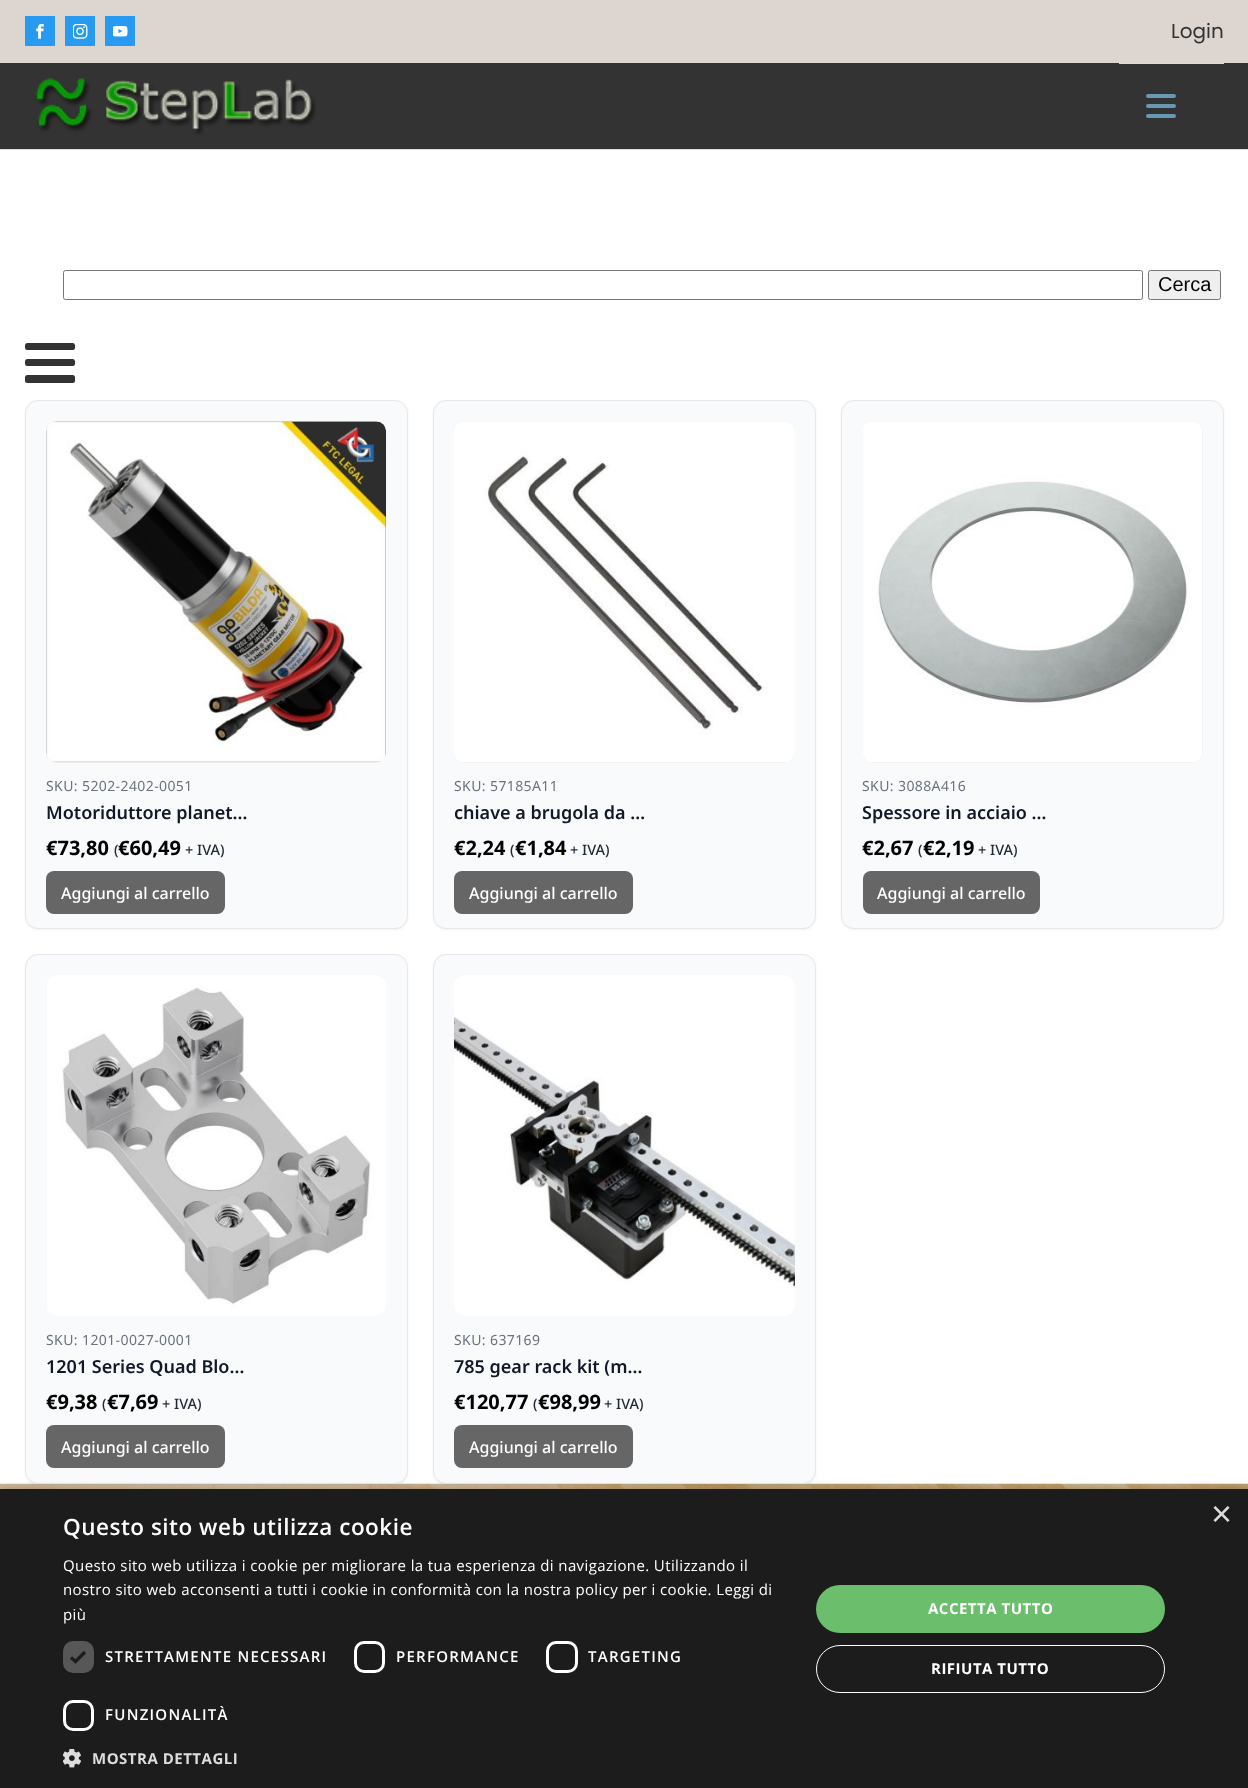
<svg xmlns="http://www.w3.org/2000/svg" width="1248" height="1788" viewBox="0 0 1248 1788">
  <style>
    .t1 { font: 20px Poppins; fill: #333; }
    .t2 { font: 20px Liberation Sans; fill: #000; }
    .t3 { font: 14px Noto Sans; letter-spacing: 0.4px; fill: #6b7280; }
    .t4 { font: 600 18px Noto Sans; fill: #111827; }
    .t5 { font: bold 20px Noto Sans; fill: #000; }
    .t6 { font: 500 14.5px Noto Sans; fill: #1f2937; }
    .t7 { font: 500 16px Noto Sans; fill: #fff; }
    .t8 { font: 36px Liberation Sans; fill: #ddd; }
    .t9 { font: 600 22.5px Open Sans; letter-spacing: 0.5px; fill: #fff; }
    .t10 { font: 15px Open Sans; letter-spacing: 0.38px; fill: #fff; }
    .t11 { font: 600 15px Open Sans; letter-spacing: 1.25px; fill: #fff; }
    .t12 { font: bold 15px Open Sans; letter-spacing: 0.5px; fill: #ddd; }
    .t13 { font: bold 15px Open Sans; letter-spacing: 0.5px; fill: #fff; }
  </style>
  <rect width="100%" height="100%" fill="#fff"/>
  <rect x="0" y="0" width="1248" height="63" fill="#ddd5d0"/>
  <rect x="25" y="16" width="30" height="30" fill="#279af1"/>
  <image x="36" y="24" width="8" height="15" href="images/1.png"/>
  <rect x="65" y="16" width="30" height="30" fill="#279af1"/>
  <image x="73" y="24" width="15" height="15" href="images/2.png"/>
  <rect x="105" y="16" width="30" height="30" fill="#279af1"/>
  <image x="113" y="26" width="15" height="11" href="images/3.png"/>
  <text x="1171" y="38" class="t1">Login</text>
  <rect x="0" y="63" width="1248" height="86" fill="#333"/>
  <rect x="0" y="149" width="1248" height="1" fill="#ddd"/>
  <image x="34" y="78" width="282" height="57" href="images/4.png"/>
  <rect x="1119" y="63" width="105" height="1" fill="#ddd"/>
  <rect x="1146" y="94" width="30" height="4" rx="2" fill="#6799b2"/>
  <rect x="1146" y="104" width="30" height="4" rx="2" fill="#6799b2"/>
  <rect x="1146" y="114" width="30" height="4" rx="2" fill="#6799b2"/>
  <rect x="63.5" y="270.5" width="1079" height="29" rx="2" fill="none" stroke="#767676"/>
  <rect x="1148.5" y="270.5" width="72" height="29" rx="2" fill="#efefef" stroke="#767676"/>
  <text x="1158" y="291" class="t2">Cerca</text>
  <rect x="25" y="343" width="50" height="7" rx="2.5" fill="#333"/>
  <rect x="25" y="359" width="50" height="7" rx="2.5" fill="#333"/>
  <rect x="25" y="375" width="50" height="8" rx="2.5" fill="#333"/>
  <rect x="25" y="401" width="383" height="529" rx="13" fill="#0000000d" filter="blur(1px)"/>
  <rect x="25.5" y="400.5" width="382" height="528" rx="12.5" fill="#f9fafb" stroke="#e5e7eb"/>
  <rect x="46" y="421" width="340" height="342" rx="10" fill="#f3f4f6"/>
  <image x="46" y="421" width="341" height="342" href="images/5.png"/>
  <text x="46" y="791" class="t3">SKU: 5202-2402-0051</text>
  <text x="46" y="819" class="t4">Motoriduttore planet…</text>
  <text x="46" y="855" class="t5">€73,80</text>
  <text x="114" y="855" class="t6">(</text>
  <text x="118" y="855" class="t5">€60,49</text>
  <text x="185" y="855" class="t6">+ IVA)</text>
  <rect x="46" y="871" width="179" height="43" rx="8" fill="#666"/>
  <text x="61" y="899" class="t7">Aggiungi al carrello</text>
  <rect x="433" y="401" width="383" height="529" rx="13" fill="#0000000d" filter="blur(1px)"/>
  <rect x="433.5" y="400.5" width="382" height="528" rx="12.5" fill="#f9fafb" stroke="#e5e7eb"/>
  <rect x="454" y="421" width="341" height="342" rx="10" fill="#f3f4f6"/>
  <image x="454" y="421" width="341" height="341" href="images/6.png"/>
  <text x="454" y="791" class="t3">SKU: 57185A11</text>
  <text x="454" y="819" class="t4">chiave a brugola da …</text>
  <text x="454" y="855" class="t5">€2,24</text>
  <text x="510" y="855" class="t6">(</text>
  <text x="515" y="855" class="t5">€1,84</text>
  <text x="570" y="855" class="t6">+ IVA)</text>
  <rect x="454" y="871" width="179" height="43" rx="8" fill="#666"/>
  <text x="469" y="899" class="t7">Aggiungi al carrello</text>
  <rect x="841" y="401" width="383" height="529" rx="13" fill="#0000000d" filter="blur(1px)"/>
  <rect x="841.5" y="400.5" width="382" height="528" rx="12.5" fill="#f9fafb" stroke="#e5e7eb"/>
  <rect x="863" y="421" width="340" height="342" rx="10" fill="#f3f4f6"/>
  <image x="863" y="421" width="339" height="341" href="images/7.png"/>
  <text x="862" y="791" class="t3">SKU: 3088A416</text>
  <text x="862" y="819" class="t4">Spessore in acciaio …</text>
  <text x="862" y="855" class="t5">€2,67</text>
  <text x="918" y="855" class="t6">(</text>
  <text x="923" y="855" class="t5">€2,19</text>
  <text x="978" y="855" class="t6">+ IVA)</text>
  <rect x="863" y="871" width="177" height="43" rx="8" fill="#666"/>
  <text x="877" y="899" class="t7">Aggiungi al carrello</text>
  <image x="0" y="1483" width="1248" height="6" href="images/10.png"/>
  <rect x="25" y="955" width="383" height="530" rx="13" fill="#0000000d" filter="blur(1px)"/>
  <rect x="25.5" y="954.5" width="382" height="529" rx="12.5" fill="#f9fafb" stroke="#e5e7eb"/>
  <rect x="46" y="975" width="340" height="341" rx="10" fill="#f3f4f6"/>
  <image x="46" y="975" width="340" height="341" href="images/8.png"/>
  <text x="46" y="1345" class="t3">SKU: 1201-0027-0001</text>
  <text x="46" y="1373" class="t4">1201 Series Quad Blo…</text>
  <text x="46" y="1409" class="t5">€9,38</text>
  <text x="102" y="1409" class="t6">(</text>
  <text x="107" y="1409" class="t5">€7,69</text>
  <text x="162" y="1409" class="t6">+ IVA)</text>
  <rect x="46" y="1425" width="179" height="43" rx="8" fill="#666"/>
  <text x="61" y="1453" class="t7">Aggiungi al carrello</text>
  <rect x="433" y="955" width="383" height="530" rx="13" fill="#0000000d" filter="blur(1px)"/>
  <rect x="433.5" y="954.5" width="382" height="529" rx="12.5" fill="#f9fafb" stroke="#e5e7eb"/>
  <rect x="454" y="975" width="341" height="341" rx="10" fill="#f3f4f6"/>
  <image x="454" y="975" width="341" height="341" href="images/9.png"/>
  <text x="454" y="1345" class="t3">SKU: 637169</text>
  <text x="454" y="1373" class="t4">785 gear rack kit (m…</text>
  <text x="454" y="1409" class="t5">€120,77</text>
  <text x="533" y="1409" class="t6">(</text>
  <text x="538" y="1409" class="t5">€98,99</text>
  <text x="604" y="1409" class="t6">+ IVA)</text>
  <rect x="454" y="1425" width="179" height="43" rx="8" fill="#666"/>
  <text x="469" y="1453" class="t7">Aggiungi al carrello</text>
  <rect x="1" y="1491" width="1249" height="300" fill="#00000059" filter="blur(5px)"/>
  <rect x="0" y="1489" width="1248" height="299" fill="#1c1c1c"/>
  <text x="1211" y="1526" class="t8">×</text>
  <text x="63" y="1535" class="t9">Questo sito web utilizza cookie</text>
  <text x="63" y="1571" class="t10">Questo sito web utilizza i cookie per migliorare la tua esperienza di navigazione. Utilizzando il</text>
  <text x="63" y="1595" class="t10">nostro sito web acconsenti a tutti i cookie in conformità con la nostra policy per i cookie. Leggi di</text>
  <text x="63" y="1620" class="t10">più</text>
  <rect x="63" y="1641" width="31" height="32" rx="10" fill="#575757"/>
  <path d="M71 1657.5L75.5 1661.5L85 1652" fill="none" stroke="#1c1c1c" stroke-width="3.3"/>
  <text x="105" y="1662" class="t11">STRETTAMENTE NECESSARI</text>
  <rect x="355.5" y="1642.5" width="28" height="29" rx="8.5" fill="none" stroke="#fff" stroke-width="3"/>
  <text x="396" y="1662" class="t11">PERFORMANCE</text>
  <rect x="547.5" y="1642.5" width="29" height="29" rx="8.5" fill="none" stroke="#fff" stroke-width="3"/>
  <text x="588" y="1662" class="t11">TARGETING</text>
  <rect x="64.5" y="1701.5" width="28" height="28" rx="8.5" fill="none" stroke="#fff" stroke-width="3"/>
  <text x="105" y="1720" class="t11">FUNZIONALITÀ</text>
  <image x="63" y="1749" width="18" height="19" href="images/11.png"/>
  <text x="92" y="1764" class="t12">MOSTRA DETTAGLI</text>
  <rect x="816" y="1585" width="349" height="48" rx="24" fill="#6bbe6b"/>
  <text x="928" y="1614" class="t13">ACCETTA TUTTO</text>
  <rect x="816.5" y="1645.5" width="348" height="47" rx="23.5" fill="none" stroke="#fff"/>
  <text x="931" y="1674" class="t13">RIFIUTA TUTTO</text>
</svg>
